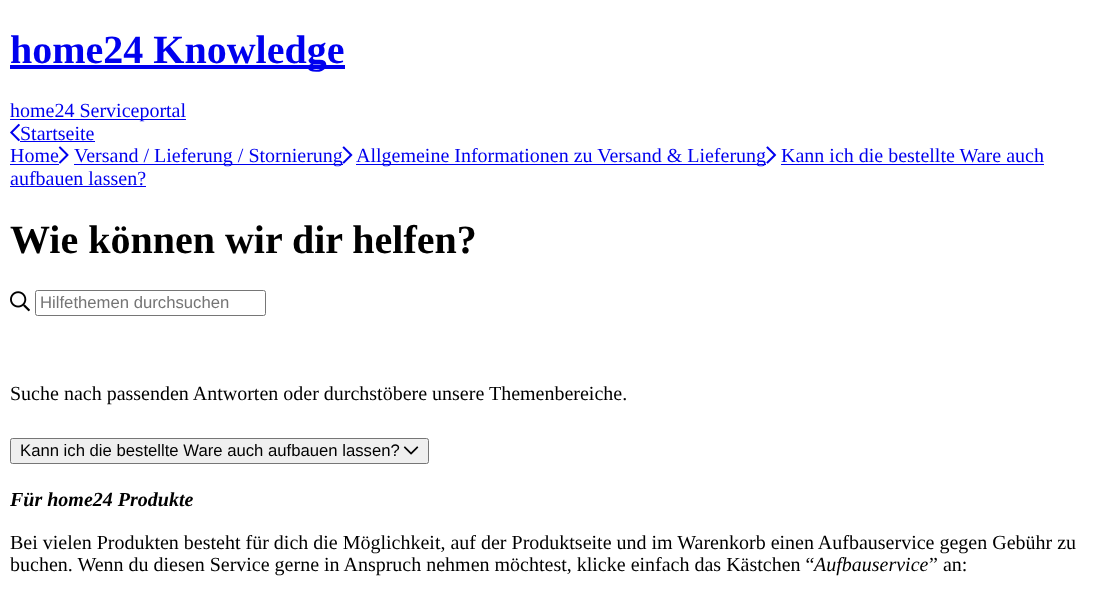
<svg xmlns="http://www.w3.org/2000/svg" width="1102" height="609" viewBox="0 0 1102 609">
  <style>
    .t1 { font: bold 40px Liberation Serif; fill: #00e; }
    .t2 { font: 20px Liberation Serif; fill: #00e; }
    .t3 { font: bold 40px Liberation Serif; fill: #000; }
    .t4 { font: 16.7px Liberation Sans; fill: #757575; }
    .t5 { font: 20px Liberation Serif; fill: #000; }
    .t6 { font: 16.7px Liberation Sans; fill: #000; }
    .t7 { font: italic bold 20px Liberation Serif; fill: #000; }
    .t8 { font: italic 20px Liberation Serif; fill: #000; }
  </style>
  <rect width="100%" height="100%" fill="#fff"/>
  <rect x="10" y="65" width="335" height="4" fill="#00e"/>
  <text x="10" y="63" class="t1">home24 Knowledge</text>
  <rect x="10" y="119" width="176" height="1" fill="#00e"/>
  <text x="10" y="117" class="t2">home24 Serviceportal</text>
  <image x="10" y="123" width="10" height="19" href="images/1.png"/>
  <text x="20" y="140" class="t2">Startseite</text>
  <rect x="20" y="141" width="75" height="1" fill="#00e"/>
  <text x="10" y="162" class="t2">Home</text>
  <rect x="10" y="164" width="49" height="1" fill="#00e"/>
  <image x="58" y="146" width="11" height="18" href="images/2.png"/>
  <rect x="74" y="164" width="269" height="1" fill="#00e"/>
  <text x="74" y="162" class="t2">Versand / Lieferung / Stornierung</text>
  <image x="342" y="146" width="11" height="18" href="images/3.png"/>
  <rect x="356" y="164" width="410" height="1" fill="#00e"/>
  <text x="356" y="162" class="t2">Allgemeine Informationen zu Versand &amp; Lieferung</text>
  <image x="766" y="146" width="11" height="18" href="images/4.png"/>
  <text x="781" y="162" class="t2">Kann ich die bestellte Ware auch</text>
  <rect x="781" y="164" width="263" height="1" fill="#00e"/>
  <text x="10" y="185" class="t2">aufbauen lassen?</text>
  <rect x="10" y="186" width="136" height="1" fill="#00e"/>
  <text x="10" y="253" class="t3">Wie können wir dir helfen?</text>
  <image x="10" y="291" width="20" height="21" href="images/5.png"/>
  <rect x="35.5" y="290.5" width="230" height="25" rx="2" fill="none" stroke="#767676"/>
  <text x="40" y="308" class="t4">Hilfethemen durchsuchen</text>
  <text x="10" y="400" class="t5">Suche nach passenden Antworten oder durchstöbere unsere Themenbereiche.</text>
  <rect x="10.5" y="438.5" width="418" height="25" rx="2" fill="#efefef" stroke="#767676"/>
  <text x="20" y="456" class="t6">Kann ich die bestellte Ware auch aufbauen lassen?</text>
  <image x="403" y="446" width="16" height="9" href="images/6.png"/>
  <text x="10" y="506" class="t7">Für home24 Produkte</text>
  <text x="10" y="549" class="t5">Bei vielen Produkten besteht für dich die Möglichkeit, auf der Produktseite und im Warenkorb einen Aufbauservice gegen Gebühr zu</text>
  <text x="10" y="571" class="t5">buchen. Wenn du diesen Service gerne in Anspruch nehmen möchtest, klicke einfach das Kästchen “</text>
  <text x="814" y="571" class="t8">Aufbauservice</text>
  <text x="929" y="571" class="t5">” an:</text>
</svg>
